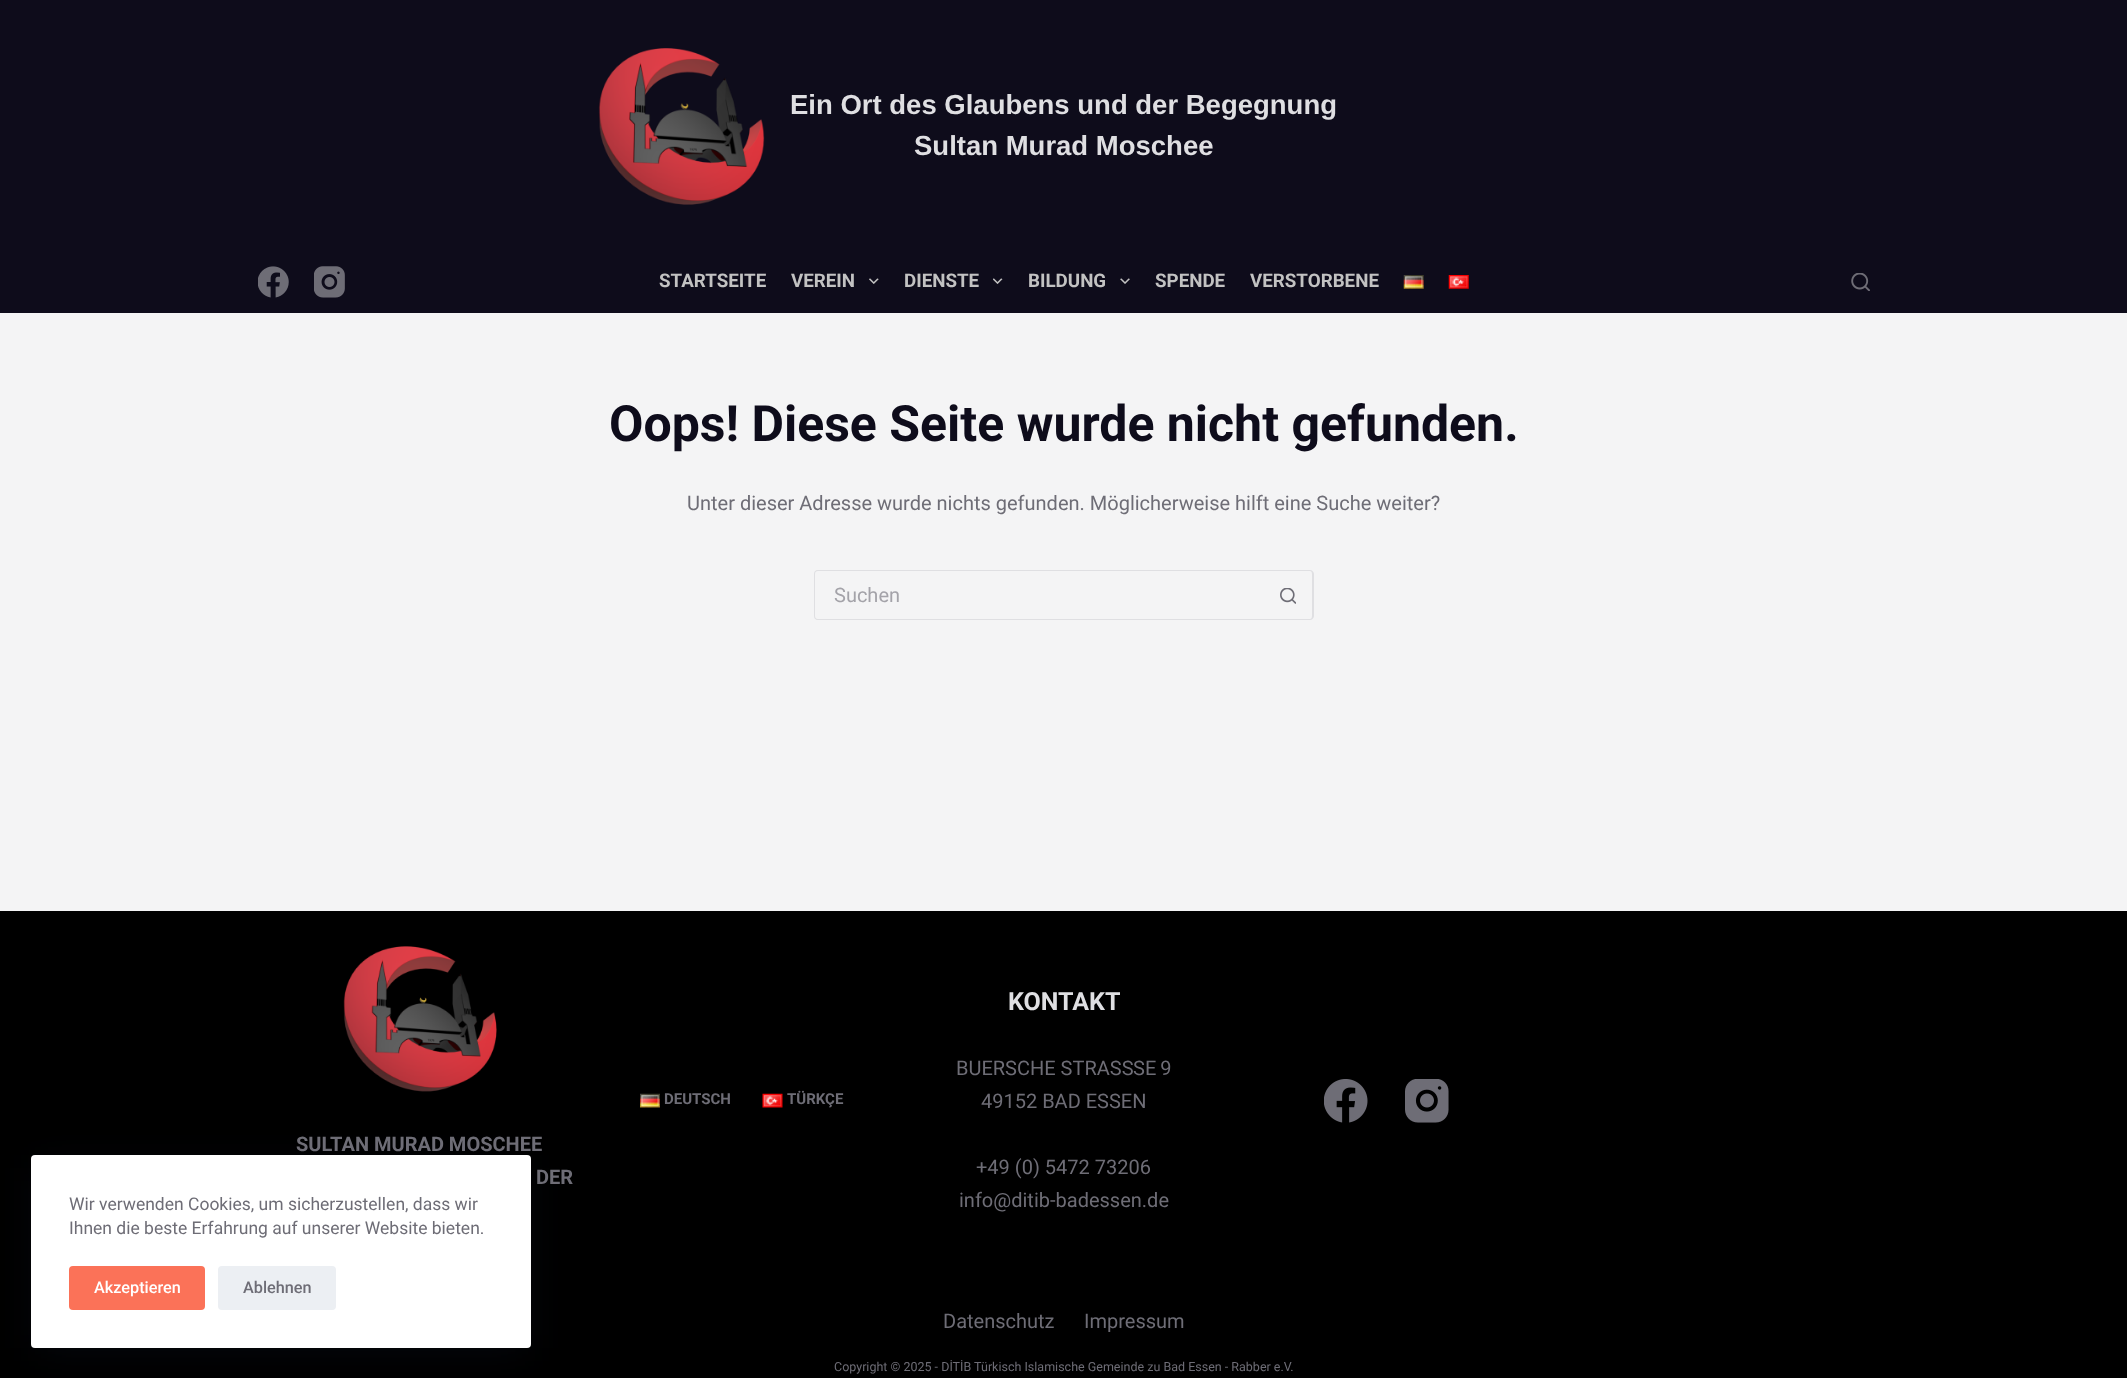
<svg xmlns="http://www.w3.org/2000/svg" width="2127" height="1378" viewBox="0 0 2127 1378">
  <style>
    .t1 { font: 17.5px Roboto; fill: #6e6d76; }
    .t2 { font: 500 16.25px Roboto; fill: #fff; }
    .t3 { font: 500 16.25px Roboto; fill: #6e6d76; }
    .t4 { font: bold 27.5px Liberation Sans; fill: #dfdfe2; }
    .t5 { font: bold 18.75px Roboto; fill: #c2c2c2; }
    .t6 { font: bold 50px Roboto; fill: #0e0c1b; }
    .t7 { font: 20px Roboto; fill: #6e6d76; }
    .t8 { font: 20px Roboto; fill: #a4a3a9; }
    .t9 { font: bold 15px Roboto; fill: #6e6d76; }
    .t10 { font: bold 25px Roboto; fill: #dfdfe2; }
    .t11 { font: bold 20px Roboto; fill: #6e6d76; }
    .t12 { font: 12.5px Roboto; fill: #6e6d76; }
  </style>
  <rect width="100%" height="100%" fill="#f4f4f5"/>
  <rect x="0" y="911" width="2127" height="467" fill="#000"/>
  <rect x="38" y="1168" width="487" height="180" fill="#22386526" filter="blur(19px)"/>
  <rect x="31" y="1155" width="500" height="193" rx="4" fill="#fff"/>
  <text x="69" y="1210" class="t1">Wir verwenden Cookies, um sicherzustellen, dass wir</text>
  <text x="69" y="1234" class="t1">Ihnen die beste Erfahrung auf unserer Website bieten.</text>
  <rect x="69" y="1266" width="136" height="44" rx="4" fill="#fb7258"/>
  <text x="94" y="1293" class="t2">Akzeptieren</text>
  <rect x="218" y="1266" width="118" height="44" rx="4" fill="#eceff3"/>
  <text x="243" y="1293" class="t3">Ablehnen</text>
  <rect x="0" y="0" width="2127" height="313" fill="#0e0c1b"/>
  <image x="598" y="48" width="167" height="157" href="images/1.png"/>
  <text x="790" y="114" class="t4">Ein Ort des Glaubens und der Begegnung</text>
  <text x="914" y="155" class="t4">Sultan Murad Moschee</text>
  <image x="258" y="266" width="31" height="32" href="images/2.png"/>
  <image x="314" y="266" width="31" height="32" href="images/3.png"/>
  <text x="659" y="287" class="t5">STARTSEITE</text>
  <text x="791" y="287" class="t5">VEREIN</text>
  <image x="869" y="278" width="10" height="6" href="images/4.png"/>
  <text x="904" y="287" class="t5">DIENSTE</text>
  <image x="993" y="278" width="10" height="6" href="images/5.png"/>
  <text x="1028" y="287" class="t5">BILDUNG</text>
  <image x="1120" y="278" width="10" height="6" href="images/6.png"/>
  <text x="1155" y="287" class="t5">SPENDE</text>
  <text x="1250" y="287" class="t5">VERSTORBENE</text>
  <image x="1403" y="275" width="21" height="14" href="images/7.png"/>
  <image x="1448" y="275" width="21" height="14" href="images/8.png"/>
  <image x="1851" y="273" width="19" height="18" href="images/9.png"/>
  <text x="609" y="441" class="t6">Oops! Diese Seite wurde nicht gefunden.</text>
  <text x="687" y="510" class="t7">Unter dieser Adresse wurde nichts gefunden. Möglicherweise hilft eine Suche weiter?</text>
  <path d="M818 570H1264V620H818C815 620 814 618 814 616V574C814 572 815 570 818 570ZM818 571H1264V619H818C816 619 815 618 815 616V574C815 572 816 571 818 571Z" fill="#dfdfe2" fill-rule="evenodd"/>
  <text x="834" y="602" class="t8">Suchen</text>
  <path d="M1264 570H1310C1312 570 1314 572 1314 574V616C1314 618 1312 620 1310 620H1264ZM1264 571H1310C1311 571 1312 572 1312 574V616C1312 618 1311 619 1310 619H1264Z" fill="#dfdfe2" fill-rule="evenodd"/>
  <image x="1280" y="588" width="16" height="16" href="images/10.png"/>
  <image x="640" y="1093" width="20" height="15" href="images/11.png"/>
  <text x="664" y="1104" class="t9">DEUTSCH</text>
  <image x="762" y="1093" width="21" height="15" href="images/12.png"/>
  <text x="787" y="1104" class="t9">TÜRKÇE</text>
  <text x="1008" y="1010" class="t10">KONTAKT</text>
  <text x="956" y="1075" class="t7">BUERSCHE STRASS</text>
  <text x="1133" y="1075" word-spacing="-1" class="t7">SE 9</text>
  <text x="981" y="1108" class="t7">49152 BAD ESSEN</text>
  <text x="976" y="1174" class="t7">+49 (0) 5472 73206</text>
  <text x="959" y="1207" class="t7">info@ditib-badessen.de</text>
  <image x="1324" y="1079" width="44" height="44" href="images/13.png"/>
  <image x="1405" y="1079" width="44" height="44" href="images/14.png"/>
  <image x="343" y="946" width="154" height="146" href="images/15.png"/>
  <text x="296" y="1151" class="t11">SULTAN MURAD MOSCHEE</text>
  <text x="536" y="1184" class="t11">DER</text>
  <text x="943" y="1328" class="t7">Datenschutz</text>
  <text x="1084" y="1328" class="t7">Impressum</text>
  <text x="834" y="1371" class="t12">Copyright © 2025 - DİTİB Türkisch Islamische Gemeinde zu Bad Essen - Rabber e.V.</text>
</svg>
